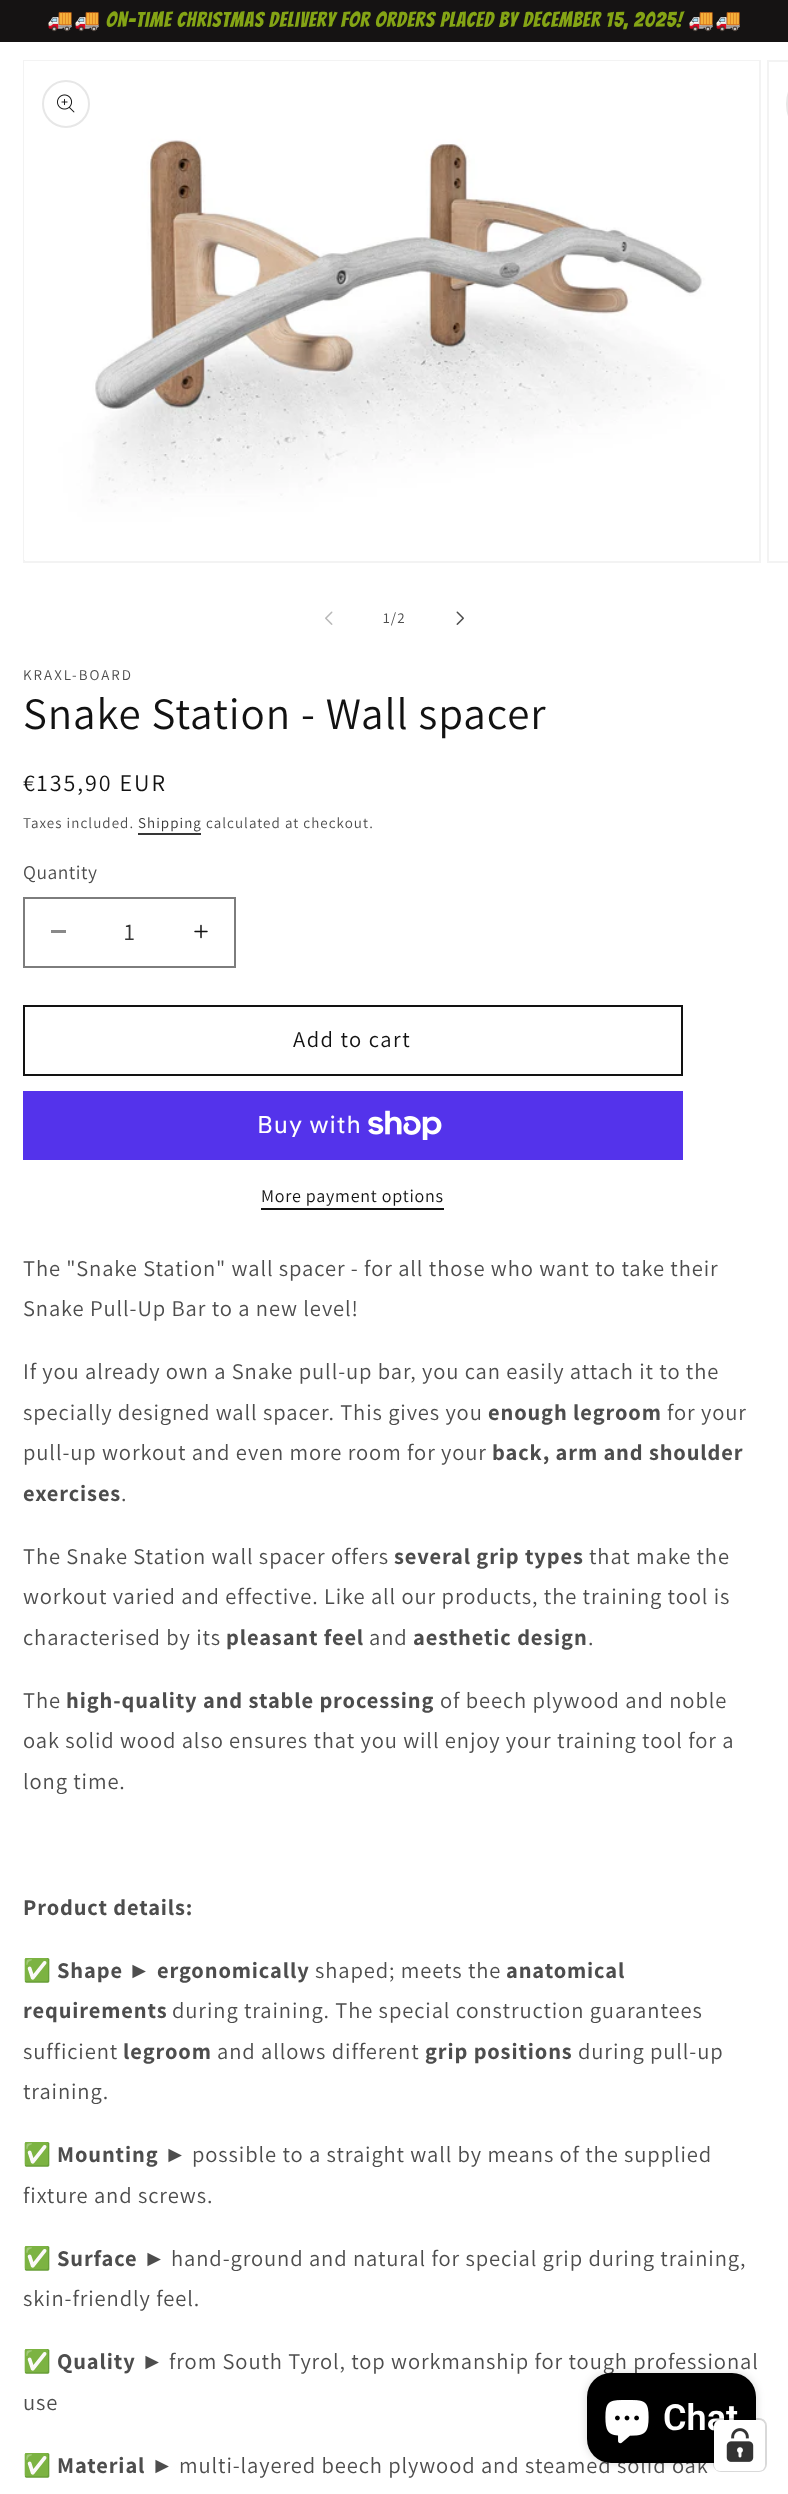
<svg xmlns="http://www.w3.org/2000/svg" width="788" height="2494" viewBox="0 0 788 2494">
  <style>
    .t1 { font: 21px Noto Color Emoji; letter-spacing: 0.9px; fill: #84a415; }
    .t2 { font: 21px Bangers; letter-spacing: 0.9px; fill: #84a415; }
    .t3 { font: 15px Assistant; letter-spacing: 1.05px; fill: #4d4d4d; }
    .t4 { font: 15px Assistant; letter-spacing: 2px; fill: #4d4d4d; }
    .t5 { font: 45px Assistant; letter-spacing: 0.9px; fill: #121212; }
    .t6 { font: 24px Assistant; letter-spacing: 2px; fill: #121212; }
    .t7 { font: 15px Assistant; letter-spacing: 1.05px; fill: #363636; }
    .t8 { font: 19.5px Assistant; letter-spacing: 0.5px; fill: #4d4d4d; }
    .t9 { font: 24px Assistant; fill: #363636; }
    .t10 { font: 22.5px Assistant; letter-spacing: 1.5px; fill: #121212; }
    .t11 { font: 24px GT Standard; letter-spacing: 0.9px; fill: #fff; }
    .t12 { font: 18px Assistant; letter-spacing: 0.75px; fill: #121212; }
    .t13 { font: 22.5px Assistant; letter-spacing: 0.9px; fill: #4d4d4d; }
    .t14 { font: bold 22.5px Assistant; letter-spacing: 0.9px; fill: #4d4d4d; }
    .t15 { font: 22.5px Noto Color Emoji; letter-spacing: 0.9px; fill: #4d4d4d; }
    .t16 { font: 22.5px Liberation Sans; letter-spacing: 0.9px; fill: #4d4d4d; }
    .t17 { font: 600 36px Roboto; fill: #fff; }
  </style>
  <rect width="100%" height="100%" fill="#fff"/>
  <rect x="0" y="0" width="788" height="42" fill="#151313"/>
  <text x="47" y="27" class="t1">🚚🚚</text>
  <text x="106" y="27" class="t2">On-time Christmas delivery for orders placed by December 15, 2025!</text>
  <text x="688" y="27" class="t1">🚚🚚</text>
  <rect x="24" y="61" width="736" height="501" fill="none" stroke="#f3f3f3" stroke-width="2"/>
  <image x="24" y="61" width="735" height="499" href="images/1.png"/>
  <circle cx="66" cy="104" r="23" fill="none" stroke="#e7e7e7" stroke-width="2"/>
  <image x="57" y="94" width="18" height="19" href="images/2.png"/>
  <rect x="768" y="61" width="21" height="501" fill="none" stroke="#f3f3f3" stroke-width="2"/>
  <rect x="787" y="81" width="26" height="46" rx="23" fill="none" stroke="#e7e7e7" stroke-width="2"/>
  <image x="325" y="611" width="8" height="14" href="images/3.png"/>
  <text x="383" y="623" class="t3">1/2</text>
  <image x="456" y="611" width="8" height="14" href="images/4.png"/>
  <text x="23" y="680" class="t4">KRAXL-BOARD</text>
  <text x="23" y="729" class="t5">Snake Station - Wall spacer</text>
  <text x="23" y="791" class="t6">€135,90 EUR</text>
  <text x="23" y="828" class="t3">Taxes included.</text>
  <text x="138" y="828" class="t7">Shipping</text>
  <rect x="138" y="833" width="63" height="2" fill="#363636"/>
  <text x="206" y="828" class="t3">calculated at checkout.</text>
  <text x="23" y="879" class="t8">Quantity</text>
  <rect x="51" y="930" width="15" height="3" fill="#898989"/>
  <image x="194" y="924" width="14" height="15" href="images/5.png"/>
  <rect x="24" y="898" width="211" height="69" fill="none" stroke="#7d7d7d" stroke-width="2"/>
  <text x="124" y="940" class="t9">1</text>
  <rect x="24" y="1006" width="658" height="69" fill="none" stroke="#121212" stroke-width="2"/>
  <text x="293" y="1047" class="t10">Add to cart</text>
  <rect x="23" y="1091" width="660" height="69" fill="#5433eb"/>
  <text x="257" y="1133" class="t11">Buy with</text>
  <image x="368" y="1110" width="74" height="30" href="images/6.png"/>
  <text x="261" y="1202" class="t12">More payment options</text>
  <rect x="261" y="1208" width="183" height="2" fill="#121212"/>
  <text x="23" y="1276" class="t13">The "Snake Station" wall spacer - for all those who want to take their</text>
  <text x="23" y="1316" class="t13">Snake Pull-Up Bar to a new level!</text>
  <text x="23" y="1379" class="t13">If you already own a Snake pull-up bar, you can easily attach it to the</text>
  <text x="23" y="1420" class="t13">specially designed wall spacer. This gives you</text>
  <text x="488" y="1420" class="t14">enough legroom</text>
  <text x="667" y="1420" class="t13">for your</text>
  <text x="23" y="1460" class="t13">pull-up workout and even more room for your</text>
  <text x="492" y="1460" class="t14">back, arm and shoulder</text>
  <text x="23" y="1501" class="t14">exercises</text>
  <text x="121" y="1501" class="t13">.</text>
  <text x="23" y="1564" class="t13">The Snake Station wall spacer offers</text>
  <text x="394" y="1564" class="t14">several grip types</text>
  <text x="589" y="1564" class="t13">that make the</text>
  <text x="23" y="1604" class="t13">workout varied and effective. Like all our products, the training tool is</text>
  <text x="23" y="1645" class="t13">characterised by its</text>
  <text x="226" y="1645" class="t14">pleasant feel</text>
  <text x="369" y="1645" class="t13">and</text>
  <text x="413" y="1645" class="t14">aesthetic design</text>
  <text x="588" y="1645" class="t13">.</text>
  <text x="23" y="1708" class="t13">The</text>
  <text x="66" y="1708" class="t14">high-quality and stable processing</text>
  <text x="440" y="1708" class="t13">of beech plywood and noble</text>
  <text x="23" y="1748" class="t13">oak solid wood also ensures that you will enjoy your training tool for a</text>
  <text x="23" y="1789" class="t13">long time.</text>
  <text x="23" y="1915" class="t14">Product details:</text>
  <text x="23" y="1978" class="t15">✅</text>
  <text x="57" y="1978" class="t14">Shape</text>
  <text x="128" y="1978" class="t16">►</text>
  <text x="157" y="1978" class="t14">ergonomically</text>
  <text x="315" y="1978" class="t13">shaped; meets the</text>
  <text x="506" y="1978" class="t14">anatomical</text>
  <text x="23" y="2018" class="t14">requirements</text>
  <text x="172" y="2018" class="t13">during training. The special construction guarantees</text>
  <text x="23" y="2059" class="t13">sufficient</text>
  <text x="123" y="2059" class="t14">legroom</text>
  <text x="217" y="2059" class="t13">and allows different</text>
  <text x="425" y="2059" class="t14">grip positions</text>
  <text x="578" y="2059" class="t13">during pull-up</text>
  <text x="23" y="2099" class="t13">training.</text>
  <text x="23" y="2162" class="t15">✅</text>
  <text x="57" y="2162" class="t14">Mounting</text>
  <text x="164" y="2162" class="t16">►</text>
  <text x="192" y="2162" class="t13">possible to a straight wall by means of the supplied</text>
  <text x="23" y="2203" class="t13">fixture and screws.</text>
  <text x="23" y="2266" class="t15">✅</text>
  <text x="57" y="2266" class="t14">Surface</text>
  <text x="143" y="2266" class="t16">►</text>
  <text x="171" y="2266" class="t13">hand-ground and natural for special grip during training,</text>
  <text x="23" y="2306" class="t13">skin-friendly feel.</text>
  <text x="23" y="2369" class="t15">✅</text>
  <text x="57" y="2369" class="t14">Quality</text>
  <text x="141" y="2369" class="t16">►</text>
  <text x="169" y="2369" class="t13">from South Tyrol, top workmanship for tough professional</text>
  <text x="23" y="2410" class="t13">use</text>
  <text x="23" y="2473" class="t15">✅</text>
  <text x="57" y="2473" class="t14">Material</text>
  <text x="151" y="2473" class="t16">►</text>
  <text x="179" y="2473" class="t13">multi-layered beech plywood and steamed solid oak</text>
  <rect x="587" y="2373" width="169" height="90" rx="24" fill="#00000026" filter="blur(4px)"/>
  <rect x="587" y="2373" width="169" height="90" rx="24" fill="#000"/>
  <image x="605" y="2400" width="44" height="44" href="images/7.png"/>
  <text x="663" y="2430" class="t17">Chat</text>
  <rect x="714" y="2419" width="52" height="52" rx="7" fill="none" stroke="#00000026" stroke-width="2"/>
  <rect x="714" y="2420" width="51" height="51" rx="6" fill="#fff"/>
  <image x="726" y="2428" width="28" height="34" href="images/8.png"/>
</svg>
